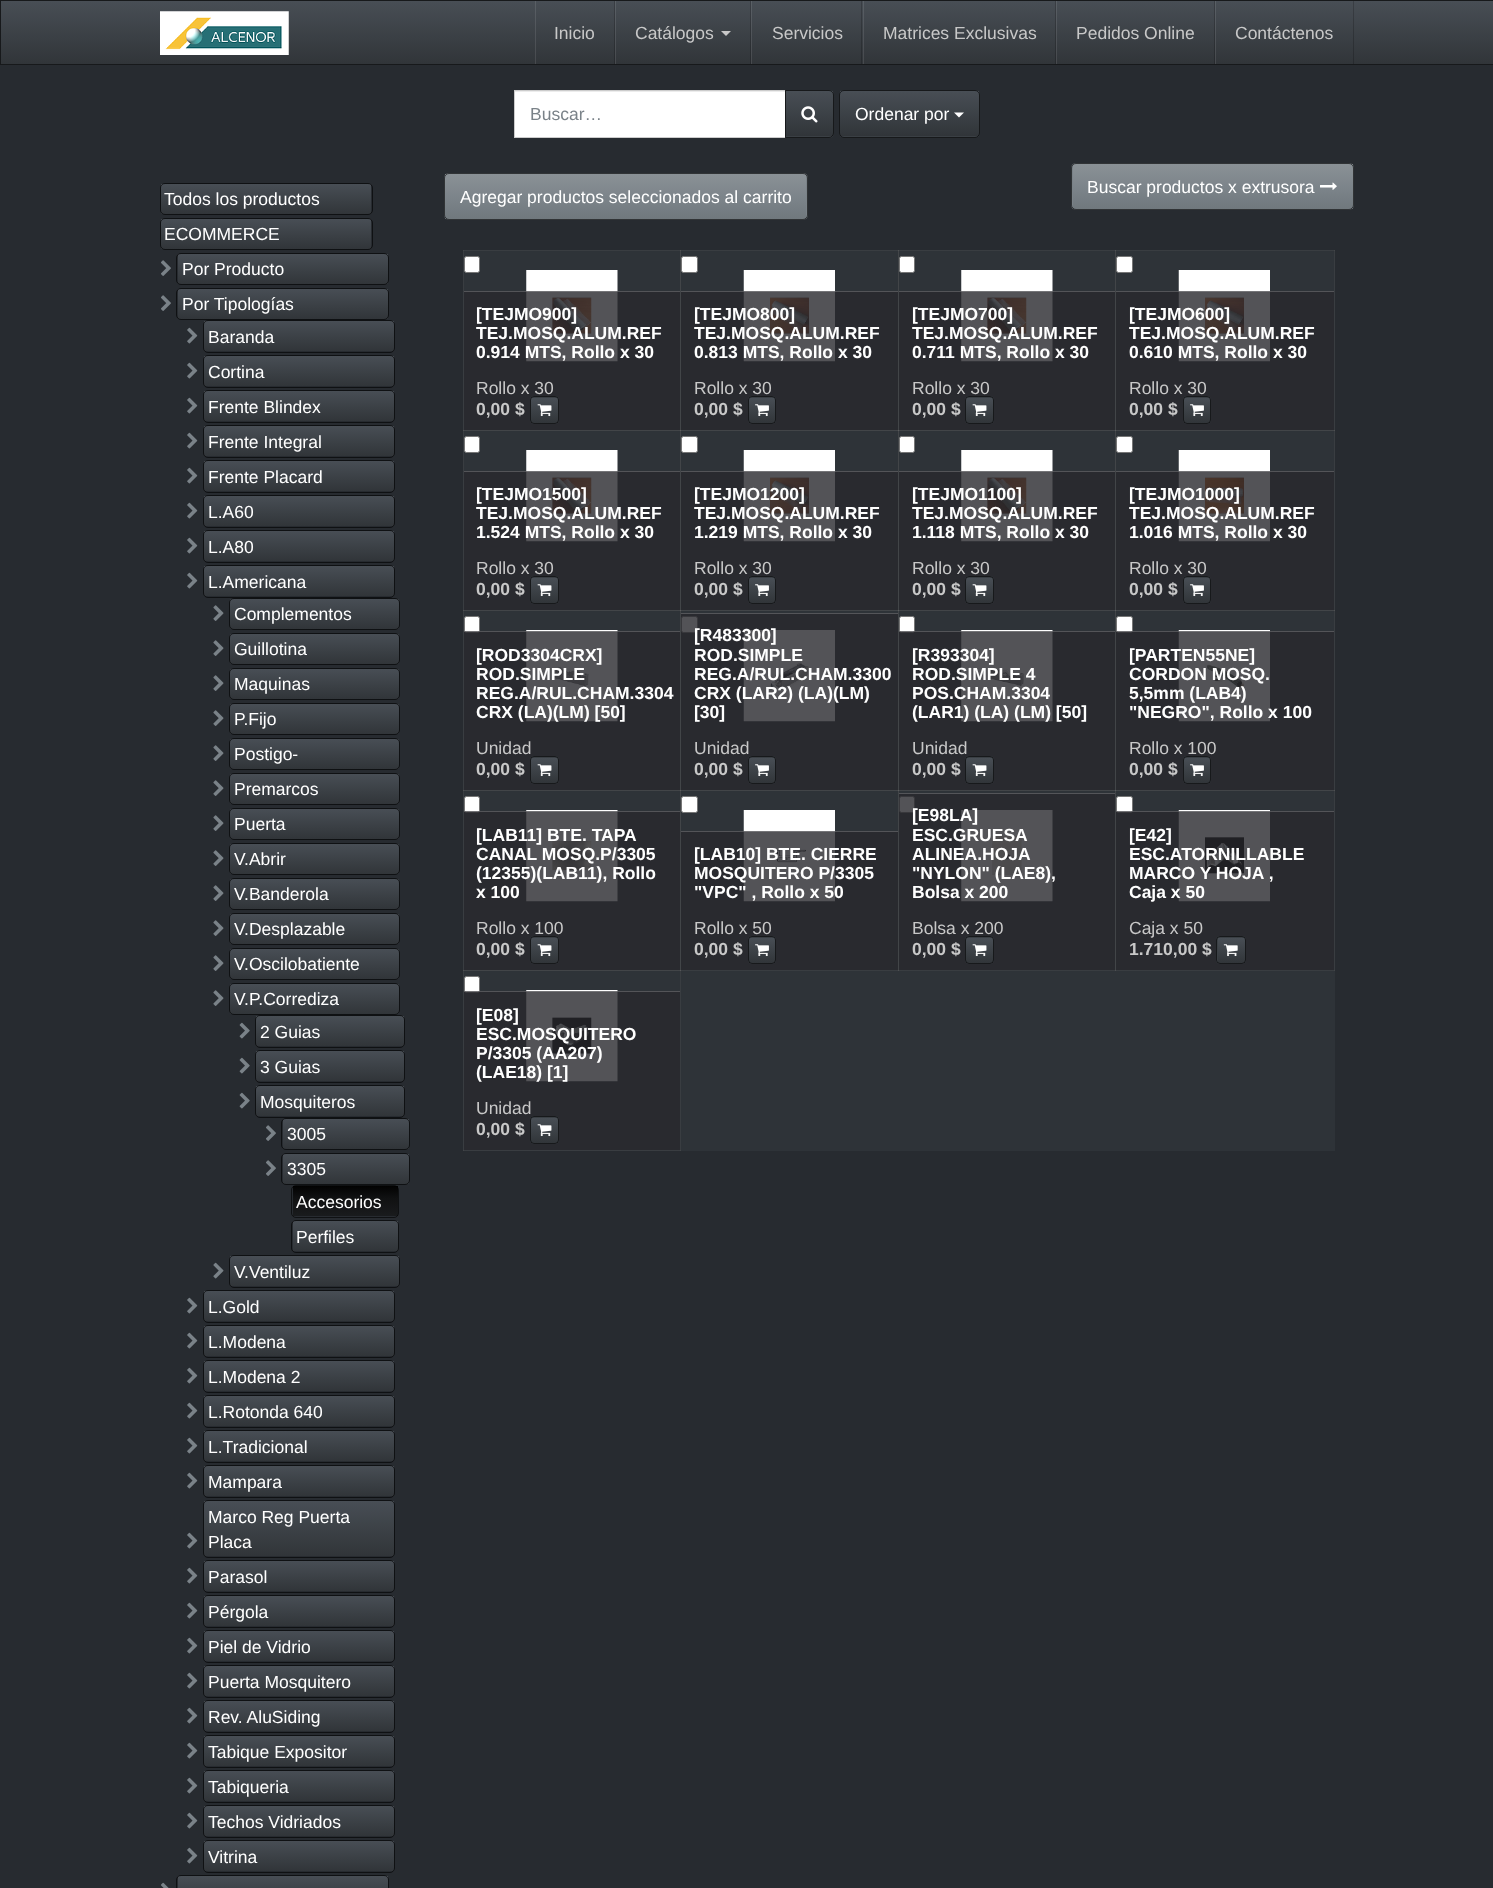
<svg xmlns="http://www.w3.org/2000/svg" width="1493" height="1888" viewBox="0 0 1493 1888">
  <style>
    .t1 { font: 17.5px Liberation Sans; fill: #c8c8c8; }
    .t2 { font: 17.5px Liberation Sans; fill: #7a8288; }
    .t3 { font: 17.5px Liberation Sans; fill: #fff; }
    .t4 { font: bold 17.5px Liberation Sans; fill: #fff; }
    .t5 { font: bold 17.5px Liberation Sans; fill: #c8c8c8; }
  </style>
  <defs>
    <linearGradient id="g1" gradientUnits="userSpaceOnUse" x1="747" y1="1.2" x2="747" y2="64"><stop offset="0" stop-color="#484e55"/><stop offset="0.6" stop-color="#3a3f44"/><stop offset="1" stop-color="#313539"/></linearGradient>
    <linearGradient id="g2" gradientUnits="userSpaceOnUse" x1="747" y1="1.2" x2="747" y2="64"><stop offset="0" stop-color="#5a6066"/><stop offset="0.6" stop-color="#4e5257"/><stop offset="1" stop-color="#46494d"/></linearGradient>
    <linearGradient id="g3" gradientUnits="userSpaceOnUse" x1="747" y1="1.2" x2="747" y2="64"><stop offset="0" stop-color="#3a3e44"/><stop offset="0.6" stop-color="#2e3236"/><stop offset="1" stop-color="#272a2e"/></linearGradient>
    <linearGradient id="g4" gradientUnits="userSpaceOnUse" x1="809" y1="91" x2="809" y2="136"><stop offset="0" stop-color="#484e55"/><stop offset="0.6" stop-color="#3a3f44"/><stop offset="1" stop-color="#313539"/></linearGradient>
    <linearGradient id="g5" gradientUnits="userSpaceOnUse" x1="909" y1="91" x2="909" y2="136"><stop offset="0" stop-color="#484e55"/><stop offset="0.6" stop-color="#3a3f44"/><stop offset="1" stop-color="#313539"/></linearGradient>
    <linearGradient id="g6" gradientUnits="userSpaceOnUse" x1="266" y1="184" x2="266" y2="214"><stop offset="0" stop-color="#484e55"/><stop offset="0.6" stop-color="#3a3f44"/><stop offset="1" stop-color="#313539"/></linearGradient>
    <linearGradient id="g7" gradientUnits="userSpaceOnUse" x1="266" y1="219" x2="266" y2="249"><stop offset="0" stop-color="#484e55"/><stop offset="0.6" stop-color="#3a3f44"/><stop offset="1" stop-color="#313539"/></linearGradient>
    <linearGradient id="g8" gradientUnits="userSpaceOnUse" x1="283" y1="254" x2="283" y2="284"><stop offset="0" stop-color="#484e55"/><stop offset="0.6" stop-color="#3a3f44"/><stop offset="1" stop-color="#313539"/></linearGradient>
    <linearGradient id="g9" gradientUnits="userSpaceOnUse" x1="283" y1="289" x2="283" y2="319"><stop offset="0" stop-color="#484e55"/><stop offset="0.6" stop-color="#3a3f44"/><stop offset="1" stop-color="#313539"/></linearGradient>
    <linearGradient id="g10" gradientUnits="userSpaceOnUse" x1="299" y1="321" x2="299" y2="351"><stop offset="0" stop-color="#484e55"/><stop offset="0.6" stop-color="#3a3f44"/><stop offset="1" stop-color="#313539"/></linearGradient>
    <linearGradient id="g11" gradientUnits="userSpaceOnUse" x1="299" y1="356" x2="299" y2="386"><stop offset="0" stop-color="#484e55"/><stop offset="0.6" stop-color="#3a3f44"/><stop offset="1" stop-color="#313539"/></linearGradient>
    <linearGradient id="g12" gradientUnits="userSpaceOnUse" x1="299" y1="391" x2="299" y2="421"><stop offset="0" stop-color="#484e55"/><stop offset="0.6" stop-color="#3a3f44"/><stop offset="1" stop-color="#313539"/></linearGradient>
    <linearGradient id="g13" gradientUnits="userSpaceOnUse" x1="299" y1="426" x2="299" y2="456"><stop offset="0" stop-color="#484e55"/><stop offset="0.6" stop-color="#3a3f44"/><stop offset="1" stop-color="#313539"/></linearGradient>
    <linearGradient id="g14" gradientUnits="userSpaceOnUse" x1="299" y1="461" x2="299" y2="491"><stop offset="0" stop-color="#484e55"/><stop offset="0.6" stop-color="#3a3f44"/><stop offset="1" stop-color="#313539"/></linearGradient>
    <linearGradient id="g15" gradientUnits="userSpaceOnUse" x1="299" y1="496" x2="299" y2="526"><stop offset="0" stop-color="#484e55"/><stop offset="0.6" stop-color="#3a3f44"/><stop offset="1" stop-color="#313539"/></linearGradient>
    <linearGradient id="g16" gradientUnits="userSpaceOnUse" x1="299" y1="531" x2="299" y2="561"><stop offset="0" stop-color="#484e55"/><stop offset="0.6" stop-color="#3a3f44"/><stop offset="1" stop-color="#313539"/></linearGradient>
    <linearGradient id="g17" gradientUnits="userSpaceOnUse" x1="299" y1="566" x2="299" y2="596"><stop offset="0" stop-color="#484e55"/><stop offset="0.6" stop-color="#3a3f44"/><stop offset="1" stop-color="#313539"/></linearGradient>
    <clipPath id="clip1"><rect x="229" y="598" width="171" height="32" rx="5"/></clipPath>
    <linearGradient id="g18" gradientUnits="userSpaceOnUse" x1="314" y1="599" x2="314" y2="629"><stop offset="0" stop-color="#484e55"/><stop offset="0.6" stop-color="#3a3f44"/><stop offset="1" stop-color="#313539"/></linearGradient>
    <clipPath id="clip2"><rect x="229" y="633" width="171" height="32" rx="5"/></clipPath>
    <linearGradient id="g19" gradientUnits="userSpaceOnUse" x1="314" y1="634" x2="314" y2="664"><stop offset="0" stop-color="#484e55"/><stop offset="0.6" stop-color="#3a3f44"/><stop offset="1" stop-color="#313539"/></linearGradient>
    <clipPath id="clip3"><rect x="229" y="668" width="171" height="32" rx="5"/></clipPath>
    <linearGradient id="g20" gradientUnits="userSpaceOnUse" x1="314" y1="669" x2="314" y2="699"><stop offset="0" stop-color="#484e55"/><stop offset="0.6" stop-color="#3a3f44"/><stop offset="1" stop-color="#313539"/></linearGradient>
    <clipPath id="clip4"><rect x="229" y="703" width="171" height="32" rx="5"/></clipPath>
    <linearGradient id="g21" gradientUnits="userSpaceOnUse" x1="314" y1="704" x2="314" y2="734"><stop offset="0" stop-color="#484e55"/><stop offset="0.6" stop-color="#3a3f44"/><stop offset="1" stop-color="#313539"/></linearGradient>
    <clipPath id="clip5"><rect x="229" y="738" width="171" height="32" rx="5"/></clipPath>
    <linearGradient id="g22" gradientUnits="userSpaceOnUse" x1="314" y1="739" x2="314" y2="769"><stop offset="0" stop-color="#484e55"/><stop offset="0.6" stop-color="#3a3f44"/><stop offset="1" stop-color="#313539"/></linearGradient>
    <clipPath id="clip6"><rect x="229" y="773" width="171" height="32" rx="5"/></clipPath>
    <linearGradient id="g23" gradientUnits="userSpaceOnUse" x1="314" y1="774" x2="314" y2="804"><stop offset="0" stop-color="#484e55"/><stop offset="0.6" stop-color="#3a3f44"/><stop offset="1" stop-color="#313539"/></linearGradient>
    <clipPath id="clip7"><rect x="229" y="808" width="171" height="32" rx="5"/></clipPath>
    <linearGradient id="g24" gradientUnits="userSpaceOnUse" x1="314" y1="809" x2="314" y2="839"><stop offset="0" stop-color="#484e55"/><stop offset="0.6" stop-color="#3a3f44"/><stop offset="1" stop-color="#313539"/></linearGradient>
    <clipPath id="clip8"><rect x="229" y="843" width="171" height="32" rx="5"/></clipPath>
    <linearGradient id="g25" gradientUnits="userSpaceOnUse" x1="314" y1="844" x2="314" y2="874"><stop offset="0" stop-color="#484e55"/><stop offset="0.6" stop-color="#3a3f44"/><stop offset="1" stop-color="#313539"/></linearGradient>
    <clipPath id="clip9"><rect x="229" y="878" width="171" height="32" rx="5"/></clipPath>
    <linearGradient id="g26" gradientUnits="userSpaceOnUse" x1="314" y1="879" x2="314" y2="909"><stop offset="0" stop-color="#484e55"/><stop offset="0.6" stop-color="#3a3f44"/><stop offset="1" stop-color="#313539"/></linearGradient>
    <clipPath id="clip10"><rect x="229" y="913" width="171" height="32" rx="5"/></clipPath>
    <linearGradient id="g27" gradientUnits="userSpaceOnUse" x1="314" y1="914" x2="314" y2="944"><stop offset="0" stop-color="#484e55"/><stop offset="0.6" stop-color="#3a3f44"/><stop offset="1" stop-color="#313539"/></linearGradient>
    <clipPath id="clip11"><rect x="229" y="948" width="171" height="32" rx="5"/></clipPath>
    <linearGradient id="g28" gradientUnits="userSpaceOnUse" x1="314" y1="949" x2="314" y2="979"><stop offset="0" stop-color="#484e55"/><stop offset="0.6" stop-color="#3a3f44"/><stop offset="1" stop-color="#313539"/></linearGradient>
    <clipPath id="clip12"><rect x="229" y="983" width="171" height="32" rx="5"/></clipPath>
    <linearGradient id="g29" gradientUnits="userSpaceOnUse" x1="314" y1="984" x2="314" y2="1014"><stop offset="0" stop-color="#484e55"/><stop offset="0.6" stop-color="#3a3f44"/><stop offset="1" stop-color="#313539"/></linearGradient>
    <linearGradient id="g30" gradientUnits="userSpaceOnUse" x1="330" y1="1016" x2="330" y2="1046"><stop offset="0" stop-color="#484e55"/><stop offset="0.6" stop-color="#3a3f44"/><stop offset="1" stop-color="#313539"/></linearGradient>
    <linearGradient id="g31" gradientUnits="userSpaceOnUse" x1="330" y1="1051" x2="330" y2="1081"><stop offset="0" stop-color="#484e55"/><stop offset="0.6" stop-color="#3a3f44"/><stop offset="1" stop-color="#313539"/></linearGradient>
    <linearGradient id="g32" gradientUnits="userSpaceOnUse" x1="330" y1="1086" x2="330" y2="1116"><stop offset="0" stop-color="#484e55"/><stop offset="0.6" stop-color="#3a3f44"/><stop offset="1" stop-color="#313539"/></linearGradient>
    <linearGradient id="g33" gradientUnits="userSpaceOnUse" x1="346" y1="1119" x2="346" y2="1149"><stop offset="0" stop-color="#484e55"/><stop offset="0.6" stop-color="#3a3f44"/><stop offset="1" stop-color="#313539"/></linearGradient>
    <linearGradient id="g34" gradientUnits="userSpaceOnUse" x1="346" y1="1154" x2="346" y2="1184"><stop offset="0" stop-color="#484e55"/><stop offset="0.6" stop-color="#3a3f44"/><stop offset="1" stop-color="#313539"/></linearGradient>
    <linearGradient id="g35" gradientUnits="userSpaceOnUse" x1="345" y1="1186" x2="345" y2="1216"><stop offset="0" stop-color="#020202"/><stop offset="0.4" stop-color="#101112"/><stop offset="1" stop-color="#191b1d"/></linearGradient>
    <linearGradient id="g36" gradientUnits="userSpaceOnUse" x1="345" y1="1221" x2="345" y2="1251"><stop offset="0" stop-color="#484e55"/><stop offset="0.6" stop-color="#3a3f44"/><stop offset="1" stop-color="#313539"/></linearGradient>
    <linearGradient id="g37" gradientUnits="userSpaceOnUse" x1="314" y1="1256" x2="314" y2="1286"><stop offset="0" stop-color="#484e55"/><stop offset="0.6" stop-color="#3a3f44"/><stop offset="1" stop-color="#313539"/></linearGradient>
    <linearGradient id="g38" gradientUnits="userSpaceOnUse" x1="299" y1="1291" x2="299" y2="1321"><stop offset="0" stop-color="#484e55"/><stop offset="0.6" stop-color="#3a3f44"/><stop offset="1" stop-color="#313539"/></linearGradient>
    <linearGradient id="g39" gradientUnits="userSpaceOnUse" x1="299" y1="1326" x2="299" y2="1356"><stop offset="0" stop-color="#484e55"/><stop offset="0.6" stop-color="#3a3f44"/><stop offset="1" stop-color="#313539"/></linearGradient>
    <linearGradient id="g40" gradientUnits="userSpaceOnUse" x1="299" y1="1361" x2="299" y2="1391"><stop offset="0" stop-color="#484e55"/><stop offset="0.6" stop-color="#3a3f44"/><stop offset="1" stop-color="#313539"/></linearGradient>
    <linearGradient id="g41" gradientUnits="userSpaceOnUse" x1="299" y1="1396" x2="299" y2="1426"><stop offset="0" stop-color="#484e55"/><stop offset="0.6" stop-color="#3a3f44"/><stop offset="1" stop-color="#313539"/></linearGradient>
    <linearGradient id="g42" gradientUnits="userSpaceOnUse" x1="299" y1="1431" x2="299" y2="1461"><stop offset="0" stop-color="#484e55"/><stop offset="0.6" stop-color="#3a3f44"/><stop offset="1" stop-color="#313539"/></linearGradient>
    <linearGradient id="g43" gradientUnits="userSpaceOnUse" x1="299" y1="1466" x2="299" y2="1496"><stop offset="0" stop-color="#484e55"/><stop offset="0.6" stop-color="#3a3f44"/><stop offset="1" stop-color="#313539"/></linearGradient>
    <linearGradient id="g44" gradientUnits="userSpaceOnUse" x1="299" y1="1501" x2="299" y2="1556"><stop offset="0" stop-color="#484e55"/><stop offset="0.6" stop-color="#3a3f44"/><stop offset="1" stop-color="#313539"/></linearGradient>
    <linearGradient id="g45" gradientUnits="userSpaceOnUse" x1="299" y1="1561" x2="299" y2="1591"><stop offset="0" stop-color="#484e55"/><stop offset="0.6" stop-color="#3a3f44"/><stop offset="1" stop-color="#313539"/></linearGradient>
    <linearGradient id="g46" gradientUnits="userSpaceOnUse" x1="299" y1="1596" x2="299" y2="1626"><stop offset="0" stop-color="#484e55"/><stop offset="0.6" stop-color="#3a3f44"/><stop offset="1" stop-color="#313539"/></linearGradient>
    <linearGradient id="g47" gradientUnits="userSpaceOnUse" x1="299" y1="1631" x2="299" y2="1661"><stop offset="0" stop-color="#484e55"/><stop offset="0.6" stop-color="#3a3f44"/><stop offset="1" stop-color="#313539"/></linearGradient>
    <linearGradient id="g48" gradientUnits="userSpaceOnUse" x1="299" y1="1666" x2="299" y2="1696"><stop offset="0" stop-color="#484e55"/><stop offset="0.6" stop-color="#3a3f44"/><stop offset="1" stop-color="#313539"/></linearGradient>
    <linearGradient id="g49" gradientUnits="userSpaceOnUse" x1="299" y1="1701" x2="299" y2="1731"><stop offset="0" stop-color="#484e55"/><stop offset="0.6" stop-color="#3a3f44"/><stop offset="1" stop-color="#313539"/></linearGradient>
    <linearGradient id="g50" gradientUnits="userSpaceOnUse" x1="299" y1="1736" x2="299" y2="1766"><stop offset="0" stop-color="#484e55"/><stop offset="0.6" stop-color="#3a3f44"/><stop offset="1" stop-color="#313539"/></linearGradient>
    <linearGradient id="g51" gradientUnits="userSpaceOnUse" x1="299" y1="1771" x2="299" y2="1801"><stop offset="0" stop-color="#484e55"/><stop offset="0.6" stop-color="#3a3f44"/><stop offset="1" stop-color="#313539"/></linearGradient>
    <linearGradient id="g52" gradientUnits="userSpaceOnUse" x1="299" y1="1806" x2="299" y2="1836"><stop offset="0" stop-color="#484e55"/><stop offset="0.6" stop-color="#3a3f44"/><stop offset="1" stop-color="#313539"/></linearGradient>
    <linearGradient id="g53" gradientUnits="userSpaceOnUse" x1="299" y1="1841" x2="299" y2="1871"><stop offset="0" stop-color="#484e55"/><stop offset="0.6" stop-color="#3a3f44"/><stop offset="1" stop-color="#313539"/></linearGradient>
    <linearGradient id="g54" gradientUnits="userSpaceOnUse" x1="283" y1="1876" x2="283" y2="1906"><stop offset="0" stop-color="#484e55"/><stop offset="0.6" stop-color="#3a3f44"/><stop offset="1" stop-color="#313539"/></linearGradient>
    <linearGradient id="g55" gradientUnits="userSpaceOnUse" x1="626" y1="174" x2="626" y2="219"><stop offset="0" stop-color="#8a9196"/><stop offset="0.6" stop-color="#7a8288"/><stop offset="1" stop-color="#70787d"/></linearGradient>
    <linearGradient id="g56" gradientUnits="userSpaceOnUse" x1="1213" y1="164" x2="1213" y2="209"><stop offset="0" stop-color="#8a9196"/><stop offset="0.6" stop-color="#7a8288"/><stop offset="1" stop-color="#70787d"/></linearGradient>
    <linearGradient id="g57" gradientUnits="userSpaceOnUse" x1="544" y1="398" x2="544" y2="423"><stop offset="0" stop-color="#484e55"/><stop offset="0.6" stop-color="#3a3f44"/><stop offset="1" stop-color="#313539"/></linearGradient>
    <linearGradient id="g58" gradientUnits="userSpaceOnUse" x1="762" y1="398" x2="762" y2="423"><stop offset="0" stop-color="#484e55"/><stop offset="0.6" stop-color="#3a3f44"/><stop offset="1" stop-color="#313539"/></linearGradient>
    <linearGradient id="g59" gradientUnits="userSpaceOnUse" x1="979" y1="398" x2="979" y2="423"><stop offset="0" stop-color="#484e55"/><stop offset="0.6" stop-color="#3a3f44"/><stop offset="1" stop-color="#313539"/></linearGradient>
    <linearGradient id="g60" gradientUnits="userSpaceOnUse" x1="1197" y1="398" x2="1197" y2="423"><stop offset="0" stop-color="#484e55"/><stop offset="0.6" stop-color="#3a3f44"/><stop offset="1" stop-color="#313539"/></linearGradient>
    <linearGradient id="g61" gradientUnits="userSpaceOnUse" x1="544" y1="578" x2="544" y2="603"><stop offset="0" stop-color="#484e55"/><stop offset="0.6" stop-color="#3a3f44"/><stop offset="1" stop-color="#313539"/></linearGradient>
    <linearGradient id="g62" gradientUnits="userSpaceOnUse" x1="762" y1="578" x2="762" y2="603"><stop offset="0" stop-color="#484e55"/><stop offset="0.6" stop-color="#3a3f44"/><stop offset="1" stop-color="#313539"/></linearGradient>
    <linearGradient id="g63" gradientUnits="userSpaceOnUse" x1="979" y1="578" x2="979" y2="603"><stop offset="0" stop-color="#484e55"/><stop offset="0.6" stop-color="#3a3f44"/><stop offset="1" stop-color="#313539"/></linearGradient>
    <linearGradient id="g64" gradientUnits="userSpaceOnUse" x1="1197" y1="578" x2="1197" y2="603"><stop offset="0" stop-color="#484e55"/><stop offset="0.6" stop-color="#3a3f44"/><stop offset="1" stop-color="#313539"/></linearGradient>
    <linearGradient id="g65" gradientUnits="userSpaceOnUse" x1="544" y1="758" x2="544" y2="783"><stop offset="0" stop-color="#484e55"/><stop offset="0.6" stop-color="#3a3f44"/><stop offset="1" stop-color="#313539"/></linearGradient>
    <linearGradient id="g66" gradientUnits="userSpaceOnUse" x1="762" y1="758" x2="762" y2="783"><stop offset="0" stop-color="#484e55"/><stop offset="0.6" stop-color="#3a3f44"/><stop offset="1" stop-color="#313539"/></linearGradient>
    <linearGradient id="g67" gradientUnits="userSpaceOnUse" x1="979" y1="758" x2="979" y2="783"><stop offset="0" stop-color="#484e55"/><stop offset="0.6" stop-color="#3a3f44"/><stop offset="1" stop-color="#313539"/></linearGradient>
    <linearGradient id="g68" gradientUnits="userSpaceOnUse" x1="1197" y1="758" x2="1197" y2="783"><stop offset="0" stop-color="#484e55"/><stop offset="0.6" stop-color="#3a3f44"/><stop offset="1" stop-color="#313539"/></linearGradient>
    <linearGradient id="g69" gradientUnits="userSpaceOnUse" x1="544" y1="938" x2="544" y2="963"><stop offset="0" stop-color="#484e55"/><stop offset="0.6" stop-color="#3a3f44"/><stop offset="1" stop-color="#313539"/></linearGradient>
    <linearGradient id="g70" gradientUnits="userSpaceOnUse" x1="762" y1="938" x2="762" y2="963"><stop offset="0" stop-color="#484e55"/><stop offset="0.6" stop-color="#3a3f44"/><stop offset="1" stop-color="#313539"/></linearGradient>
    <linearGradient id="g71" gradientUnits="userSpaceOnUse" x1="979" y1="938" x2="979" y2="963"><stop offset="0" stop-color="#484e55"/><stop offset="0.6" stop-color="#3a3f44"/><stop offset="1" stop-color="#313539"/></linearGradient>
    <linearGradient id="g72" gradientUnits="userSpaceOnUse" x1="1231" y1="938" x2="1231" y2="963"><stop offset="0" stop-color="#484e55"/><stop offset="0.6" stop-color="#3a3f44"/><stop offset="1" stop-color="#313539"/></linearGradient>
    <linearGradient id="g73" gradientUnits="userSpaceOnUse" x1="544" y1="1118" x2="544" y2="1143"><stop offset="0" stop-color="#484e55"/><stop offset="0.6" stop-color="#3a3f44"/><stop offset="1" stop-color="#313539"/></linearGradient>
  </defs>
  <rect width="100%" height="100%" fill="#272b30"/>
  <rect x="1" y="1" width="1492" height="63" fill="url(#g1)"/>
  <rect x="1215" y="1" width="1" height="63" fill="url(#g2)"/>
  <rect x="1353" y="1" width="1" height="63" fill="url(#g3)"/>
  <rect x="1056" y="1" width="1" height="63" fill="url(#g2)"/>
  <rect x="1214" y="1" width="1" height="63" fill="url(#g3)"/>
  <rect x="863" y="1" width="1" height="63" fill="url(#g2)"/>
  <rect x="1055" y="1" width="1" height="63" fill="url(#g3)"/>
  <rect x="751" y="1" width="1" height="63" fill="url(#g2)"/>
  <rect x="861" y="1" width="1" height="63" fill="url(#g3)"/>
  <rect x="615" y="1" width="1" height="63" fill="url(#g2)"/>
  <rect x="750" y="1" width="1" height="63" fill="url(#g3)"/>
  <rect x="535" y="1" width="1" height="63" fill="url(#g2)"/>
  <rect x="614" y="1" width="1" height="63" fill="url(#g3)"/>
  <rect x="0.5" y="0.5" width="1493" height="64" fill="none" stroke="#17191b"/>
  <image x="160" y="11" width="129" height="44" href="images/1.png"/>
  <text x="554" y="39" class="t1">Inicio</text>
  <text x="635" y="39" class="t1">Catálogos</text>
  <path d="M721 31H731L726 36Z" fill="#c8c8c8"/>
  <text x="772" y="39" class="t1">Servicios</text>
  <text x="883" y="39" class="t1">Matrices Exclusivas</text>
  <text x="1076" y="39" class="t1">Pedidos Online</text>
  <text x="1235" y="39" class="t1">Contáctenos</text>
  <rect x="515" y="92" width="270" height="45" fill="#fff"/>
  <rect x="515" y="91" width="270" height="1" fill="#ececec"/>
  <rect x="514.5" y="90.5" width="271" height="47" fill="none" stroke="#ccc"/>
  <text x="530" y="120" class="t2">Buscar…</text>
  <path d="M785 90H829C832 90 834 92 834 95V133C834 136 832 138 829 138H785Z" fill="#3a3f44"/>
  <rect x="786" y="91" width="47" height="45" fill="url(#g4)"/>
  <path d="M785.5 90.5H829C831.5 90.5 833.5 92.5 833.5 95V133C833.5 135.5 831.5 137.5 829 137.5H785.5Z" fill="none" stroke="#00000099"/>
  <image x="801" y="106" width="17" height="17" href="images/2.png"/>
  <rect x="839" y="90" width="141" height="48" rx="5" fill="#3a3f44"/>
  <rect x="840" y="91" width="139" height="45" fill="url(#g5)"/>
  <rect x="839.5" y="90.5" width="140" height="47" rx="4.5" fill="none" stroke="#00000099"/>
  <text x="855" y="120" class="t3">Ordenar por</text>
  <path d="M954 112.5H964L959 117.5Z" fill="#fff"/>
  <rect x="161" y="184" width="210" height="30" fill="url(#g6)"/>
  <rect x="160.5" y="183.5" width="212" height="31" rx="4.5" fill="none" stroke="#00000099"/>
  <text x="164" y="205" class="t3">Todos los productos</text>
  <rect x="161" y="219" width="210" height="30" fill="url(#g7)"/>
  <rect x="160.5" y="218.5" width="212" height="31" rx="4.5" fill="none" stroke="#00000099"/>
  <text x="164" y="240" class="t3">ECOMMERCE</text>
  <image x="161" y="260" width="10" height="16" href="images/3.png"/>
  <rect x="178" y="254" width="210" height="30" fill="url(#g8)"/>
  <rect x="176.5" y="253.5" width="212" height="31" rx="4.5" fill="none" stroke="#00000099"/>
  <text x="182" y="275" class="t3">Por Producto</text>
  <image x="161" y="295" width="10" height="16" href="images/3.png"/>
  <rect x="178" y="289" width="210" height="30" fill="url(#g9)"/>
  <rect x="176.5" y="288.5" width="212" height="31" rx="4.5" fill="none" stroke="#00000099"/>
  <text x="182" y="310" class="t3">Por Tipologías</text>
  <image x="187" y="327" width="11" height="17" href="images/4.png"/>
  <rect x="204" y="321" width="190" height="30" fill="url(#g10)"/>
  <rect x="203.5" y="320.5" width="191" height="32" rx="4.5" fill="none" stroke="#00000099"/>
  <text x="208" y="343" class="t3">Baranda</text>
  <image x="187" y="362" width="11" height="17" href="images/4.png"/>
  <rect x="204" y="356" width="190" height="30" fill="url(#g11)"/>
  <rect x="203.5" y="355.5" width="191" height="32" rx="4.5" fill="none" stroke="#00000099"/>
  <text x="208" y="378" class="t3">Cortina</text>
  <image x="187" y="397" width="11" height="17" href="images/4.png"/>
  <rect x="204" y="391" width="190" height="30" fill="url(#g12)"/>
  <rect x="203.5" y="390.5" width="191" height="32" rx="4.5" fill="none" stroke="#00000099"/>
  <text x="208" y="413" class="t3">Frente Blindex</text>
  <image x="187" y="432" width="11" height="17" href="images/4.png"/>
  <rect x="204" y="426" width="190" height="30" fill="url(#g13)"/>
  <rect x="203.5" y="425.5" width="191" height="32" rx="4.5" fill="none" stroke="#00000099"/>
  <text x="208" y="448" class="t3">Frente Integral</text>
  <image x="187" y="467" width="11" height="17" href="images/4.png"/>
  <rect x="204" y="461" width="190" height="30" fill="url(#g14)"/>
  <rect x="203.5" y="460.5" width="191" height="32" rx="4.5" fill="none" stroke="#00000099"/>
  <text x="208" y="483" class="t3">Frente Placard</text>
  <image x="187" y="502" width="11" height="17" href="images/4.png"/>
  <rect x="204" y="496" width="190" height="30" fill="url(#g15)"/>
  <rect x="203.5" y="495.5" width="191" height="32" rx="4.5" fill="none" stroke="#00000099"/>
  <text x="208" y="518" class="t3">L.A60</text>
  <image x="187" y="537" width="11" height="17" href="images/4.png"/>
  <rect x="204" y="531" width="190" height="30" fill="url(#g16)"/>
  <rect x="203.5" y="530.5" width="191" height="32" rx="4.5" fill="none" stroke="#00000099"/>
  <text x="208" y="553" class="t3">L.A80</text>
  <image x="187" y="572" width="11" height="17" href="images/4.png"/>
  <rect x="204" y="566" width="190" height="30" fill="url(#g17)"/>
  <rect x="203.5" y="565.5" width="191" height="32" rx="4.5" fill="none" stroke="#00000099"/>
  <text x="208" y="588" class="t3">L.Americana</text>
  <image x="213" y="605" width="11" height="16" href="images/5.png"/>
  <g clip-path="url(#clip1)">
    <rect x="230" y="599" width="169" height="30" fill="url(#g18)"/>
  </g>
  <rect x="229.5" y="598.5" width="170" height="31" rx="4.5" fill="none" stroke="#00000099"/>
  <text x="234" y="620" class="t3">Complementos</text>
  <image x="213" y="640" width="11" height="16" href="images/5.png"/>
  <g clip-path="url(#clip2)">
    <rect x="230" y="634" width="169" height="30" fill="url(#g19)"/>
  </g>
  <rect x="229.5" y="633.5" width="170" height="31" rx="4.5" fill="none" stroke="#00000099"/>
  <text x="234" y="655" class="t3">Guillotina</text>
  <image x="213" y="675" width="11" height="16" href="images/5.png"/>
  <g clip-path="url(#clip3)">
    <rect x="230" y="669" width="169" height="30" fill="url(#g20)"/>
  </g>
  <rect x="229.5" y="668.5" width="170" height="31" rx="4.5" fill="none" stroke="#00000099"/>
  <text x="234" y="690" class="t3">Maquinas</text>
  <image x="213" y="710" width="11" height="16" href="images/5.png"/>
  <g clip-path="url(#clip4)">
    <rect x="230" y="704" width="169" height="30" fill="url(#g21)"/>
  </g>
  <rect x="229.5" y="703.5" width="170" height="31" rx="4.5" fill="none" stroke="#00000099"/>
  <text x="234" y="725" class="t3">P.Fijo</text>
  <image x="213" y="745" width="11" height="16" href="images/5.png"/>
  <g clip-path="url(#clip5)">
    <rect x="230" y="739" width="169" height="30" fill="url(#g22)"/>
  </g>
  <rect x="229.5" y="738.5" width="170" height="31" rx="4.5" fill="none" stroke="#00000099"/>
  <text x="234" y="760" class="t3">Postigo-</text>
  <image x="213" y="780" width="11" height="16" href="images/5.png"/>
  <g clip-path="url(#clip6)">
    <rect x="230" y="774" width="169" height="30" fill="url(#g23)"/>
  </g>
  <rect x="229.5" y="773.5" width="170" height="31" rx="4.5" fill="none" stroke="#00000099"/>
  <text x="234" y="795" class="t3">Premarcos</text>
  <image x="213" y="815" width="11" height="16" href="images/5.png"/>
  <g clip-path="url(#clip7)">
    <rect x="230" y="809" width="169" height="30" fill="url(#g24)"/>
  </g>
  <rect x="229.5" y="808.5" width="170" height="31" rx="4.5" fill="none" stroke="#00000099"/>
  <text x="234" y="830" class="t3">Puerta</text>
  <image x="213" y="850" width="11" height="16" href="images/5.png"/>
  <g clip-path="url(#clip8)">
    <rect x="230" y="844" width="169" height="30" fill="url(#g25)"/>
  </g>
  <rect x="229.5" y="843.5" width="170" height="31" rx="4.5" fill="none" stroke="#00000099"/>
  <text x="234" y="865" class="t3">V.Abrir</text>
  <image x="213" y="885" width="11" height="16" href="images/5.png"/>
  <g clip-path="url(#clip9)">
    <rect x="230" y="879" width="169" height="30" fill="url(#g26)"/>
  </g>
  <rect x="229.5" y="878.5" width="170" height="31" rx="4.5" fill="none" stroke="#00000099"/>
  <text x="234" y="900" class="t3">V.Banderola</text>
  <image x="213" y="920" width="11" height="16" href="images/5.png"/>
  <g clip-path="url(#clip10)">
    <rect x="230" y="914" width="169" height="30" fill="url(#g27)"/>
  </g>
  <rect x="229.5" y="913.5" width="170" height="31" rx="4.5" fill="none" stroke="#00000099"/>
  <text x="234" y="935" class="t3">V.Desplazable</text>
  <image x="213" y="955" width="11" height="16" href="images/5.png"/>
  <g clip-path="url(#clip11)">
    <rect x="230" y="949" width="169" height="30" fill="url(#g28)"/>
  </g>
  <rect x="229.5" y="948.5" width="170" height="31" rx="4.5" fill="none" stroke="#00000099"/>
  <text x="234" y="970" class="t3">V.Oscilobatiente</text>
  <image x="213" y="990" width="11" height="16" href="images/5.png"/>
  <g clip-path="url(#clip12)">
    <rect x="230" y="984" width="169" height="30" fill="url(#g29)"/>
  </g>
  <rect x="229.5" y="983.5" width="170" height="31" rx="4.5" fill="none" stroke="#00000099"/>
  <text x="234" y="1005" class="t3">V.P.Corrediza</text>
  <image x="239" y="1022" width="11" height="17" href="images/6.png"/>
  <rect x="256" y="1016" width="148" height="30" fill="url(#g30)"/>
  <rect x="255.5" y="1015.5" width="149" height="32" rx="4.5" fill="none" stroke="#00000099"/>
  <text x="260" y="1038" class="t3">2 Guias</text>
  <image x="239" y="1057" width="11" height="17" href="images/6.png"/>
  <rect x="256" y="1051" width="148" height="30" fill="url(#g31)"/>
  <rect x="255.5" y="1050.5" width="149" height="32" rx="4.5" fill="none" stroke="#00000099"/>
  <text x="260" y="1073" class="t3">3 Guias</text>
  <image x="239" y="1092" width="11" height="17" href="images/6.png"/>
  <rect x="256" y="1086" width="148" height="30" fill="url(#g32)"/>
  <rect x="255.5" y="1085.5" width="149" height="32" rx="4.5" fill="none" stroke="#00000099"/>
  <text x="260" y="1108" class="t3">Mosquiteros</text>
  <image x="266" y="1125" width="10" height="16" href="images/3.png"/>
  <rect x="283" y="1119" width="126" height="30" fill="url(#g33)"/>
  <rect x="281.5" y="1118.5" width="128" height="31" rx="4.5" fill="none" stroke="#00000099"/>
  <text x="287" y="1140" class="t3">3005</text>
  <image x="266" y="1160" width="10" height="16" href="images/3.png"/>
  <rect x="283" y="1154" width="126" height="30" fill="url(#g34)"/>
  <rect x="281.5" y="1153.5" width="128" height="31" rx="4.5" fill="none" stroke="#00000099"/>
  <text x="287" y="1175" class="t3">3305</text>
  <rect x="293" y="1186" width="105" height="30" fill="url(#g35)"/>
  <rect x="291.5" y="1185.5" width="107" height="32" rx="4.5" fill="none" stroke="#00000099"/>
  <text x="296" y="1208" class="t3">Accesorios</text>
  <rect x="293" y="1221" width="105" height="30" fill="url(#g36)"/>
  <rect x="291.5" y="1220.5" width="107" height="32" rx="4.5" fill="none" stroke="#00000099"/>
  <text x="296" y="1243" class="t3">Perfiles</text>
  <image x="213" y="1262" width="11" height="17" href="images/7.png"/>
  <rect x="230" y="1256" width="169" height="30" fill="url(#g37)"/>
  <rect x="229.5" y="1255.5" width="170" height="32" rx="4.5" fill="none" stroke="#00000099"/>
  <text x="234" y="1278" class="t3">V.Ventiluz</text>
  <image x="187" y="1297" width="11" height="17" href="images/4.png"/>
  <rect x="204" y="1291" width="190" height="30" fill="url(#g38)"/>
  <rect x="203.5" y="1290.5" width="191" height="32" rx="4.5" fill="none" stroke="#00000099"/>
  <text x="208" y="1313" class="t3">L.Gold</text>
  <image x="187" y="1332" width="11" height="17" href="images/4.png"/>
  <rect x="204" y="1326" width="190" height="30" fill="url(#g39)"/>
  <rect x="203.5" y="1325.5" width="191" height="32" rx="4.5" fill="none" stroke="#00000099"/>
  <text x="208" y="1348" class="t3">L.Modena</text>
  <image x="187" y="1367" width="11" height="17" href="images/4.png"/>
  <rect x="204" y="1361" width="190" height="30" fill="url(#g40)"/>
  <rect x="203.5" y="1360.5" width="191" height="32" rx="4.5" fill="none" stroke="#00000099"/>
  <text x="208" y="1383" class="t3">L.Modena 2</text>
  <image x="187" y="1402" width="11" height="17" href="images/4.png"/>
  <rect x="204" y="1396" width="190" height="30" fill="url(#g41)"/>
  <rect x="203.5" y="1395.5" width="191" height="32" rx="4.5" fill="none" stroke="#00000099"/>
  <text x="208" y="1418" class="t3">L.Rotonda 640</text>
  <image x="187" y="1437" width="11" height="17" href="images/4.png"/>
  <rect x="204" y="1431" width="190" height="30" fill="url(#g42)"/>
  <rect x="203.5" y="1430.5" width="191" height="32" rx="4.5" fill="none" stroke="#00000099"/>
  <text x="208" y="1453" class="t3">L.Tradicional</text>
  <image x="187" y="1472" width="11" height="17" href="images/4.png"/>
  <rect x="204" y="1466" width="190" height="30" fill="url(#g43)"/>
  <rect x="203.5" y="1465.5" width="191" height="32" rx="4.5" fill="none" stroke="#00000099"/>
  <text x="208" y="1488" class="t3">Mampara</text>
  <image x="187" y="1532" width="11" height="17" href="images/4.png"/>
  <rect x="204" y="1501" width="190" height="55" fill="url(#g44)"/>
  <rect x="203.5" y="1500.5" width="191" height="57" rx="4.5" fill="none" stroke="#00000099"/>
  <text x="208" y="1523" class="t3">Marco Reg Puerta</text>
  <text x="208" y="1548" class="t3">Placa</text>
  <image x="187" y="1567" width="11" height="17" href="images/4.png"/>
  <rect x="204" y="1561" width="190" height="30" fill="url(#g45)"/>
  <rect x="203.5" y="1560.5" width="191" height="32" rx="4.5" fill="none" stroke="#00000099"/>
  <text x="208" y="1583" class="t3">Parasol</text>
  <image x="187" y="1602" width="11" height="17" href="images/4.png"/>
  <rect x="204" y="1596" width="190" height="30" fill="url(#g46)"/>
  <rect x="203.5" y="1595.5" width="191" height="32" rx="4.5" fill="none" stroke="#00000099"/>
  <text x="208" y="1618" class="t3">Pérgola</text>
  <image x="187" y="1637" width="11" height="17" href="images/4.png"/>
  <rect x="204" y="1631" width="190" height="30" fill="url(#g47)"/>
  <rect x="203.5" y="1630.5" width="191" height="32" rx="4.5" fill="none" stroke="#00000099"/>
  <text x="208" y="1653" class="t3">Piel de Vidrio</text>
  <image x="187" y="1672" width="11" height="17" href="images/4.png"/>
  <rect x="204" y="1666" width="190" height="30" fill="url(#g48)"/>
  <rect x="203.5" y="1665.5" width="191" height="32" rx="4.5" fill="none" stroke="#00000099"/>
  <text x="208" y="1688" class="t3">Puerta Mosquitero</text>
  <image x="187" y="1707" width="11" height="17" href="images/4.png"/>
  <rect x="204" y="1701" width="190" height="30" fill="url(#g49)"/>
  <rect x="203.5" y="1700.5" width="191" height="32" rx="4.5" fill="none" stroke="#00000099"/>
  <text x="208" y="1723" class="t3">Rev. AluSiding</text>
  <image x="187" y="1742" width="11" height="17" href="images/4.png"/>
  <rect x="204" y="1736" width="190" height="30" fill="url(#g50)"/>
  <rect x="203.5" y="1735.5" width="191" height="32" rx="4.5" fill="none" stroke="#00000099"/>
  <text x="208" y="1758" class="t3">Tabique Expositor</text>
  <image x="187" y="1777" width="11" height="17" href="images/4.png"/>
  <rect x="204" y="1771" width="190" height="30" fill="url(#g51)"/>
  <rect x="203.5" y="1770.5" width="191" height="32" rx="4.5" fill="none" stroke="#00000099"/>
  <text x="208" y="1793" class="t3">Tabiqueria</text>
  <image x="187" y="1812" width="11" height="17" href="images/4.png"/>
  <rect x="204" y="1806" width="190" height="30" fill="url(#g52)"/>
  <rect x="203.5" y="1805.5" width="191" height="32" rx="4.5" fill="none" stroke="#00000099"/>
  <text x="208" y="1828" class="t3">Techos Vidriados</text>
  <image x="187" y="1847" width="11" height="17" href="images/4.png"/>
  <rect x="204" y="1841" width="190" height="30" fill="url(#g53)"/>
  <rect x="203.5" y="1840.5" width="191" height="32" rx="4.5" fill="none" stroke="#00000099"/>
  <text x="208" y="1863" class="t3">Vitrina</text>
  <image x="161" y="1882" width="8" height="6" href="images/8.png"/>
  <rect x="178" y="1876" width="210" height="12" fill="url(#g54)"/>
  <rect x="176.5" y="1875.5" width="212" height="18" rx="4.5" fill="none" stroke="#00000099"/>
  <rect x="444" y="173" width="364" height="47" rx="5" fill="#7a8288"/>
  <rect x="445" y="174" width="361" height="45" fill="url(#g55)"/>
  <rect x="444.5" y="173.5" width="363" height="46" rx="4.5" fill="none" stroke="#00000099"/>
  <text x="460" y="203" class="t3">Agregar productos seleccionados al carrito</text>
  <rect x="1071" y="163" width="283" height="47" rx="5" fill="#7a8288"/>
  <rect x="1073" y="164" width="280" height="45" fill="url(#g56)"/>
  <rect x="1071.5" y="163.5" width="282" height="46" rx="4.5" fill="none" stroke="#00000099"/>
  <text x="1087" y="193" class="t3">Buscar productos x extrusora</text>
  <image x="1320" y="182" width="17" height="8" href="images/9.png"/>
  <rect x="464" y="251" width="871" height="900" fill="#2e3338"/>
  <rect x="899" y="794" width="216" height="176" fill="#292a2f"/>
  <rect x="681" y="614" width="217" height="176" fill="#292a2f"/>
  <rect x="463" y="250" width="1" height="901" fill="#393d41"/>
  <rect x="463" y="250" width="218" height="1" fill="#393d41"/>
  <rect x="463" y="250" width="1" height="1" fill="#424548"/>
  <rect x="680" y="250" width="1" height="181" fill="#424548"/>
  <rect x="680" y="250" width="219" height="1" fill="#393d41"/>
  <rect x="680" y="250" width="1" height="1" fill="#4e5052"/>
  <rect x="898" y="250" width="1" height="181" fill="#424548"/>
  <rect x="898" y="250" width="218" height="1" fill="#393d41"/>
  <rect x="898" y="250" width="1" height="1" fill="#4e5052"/>
  <rect x="1115" y="250" width="1" height="181" fill="#424548"/>
  <rect x="1334" y="250" width="1" height="541" fill="#393d41"/>
  <rect x="463" y="430" width="218" height="1" fill="#424548"/>
  <rect x="463" y="430" width="1" height="1" fill="#4e5052"/>
  <rect x="680" y="430" width="1" height="181" fill="#424548"/>
  <rect x="680" y="430" width="219" height="1" fill="#424548"/>
  <rect x="680" y="430" width="1" height="1" fill="#5b5c5d"/>
  <rect x="898" y="430" width="1" height="181" fill="#424548"/>
  <rect x="898" y="430" width="218" height="1" fill="#424548"/>
  <rect x="898" y="430" width="1" height="1" fill="#5b5c5d"/>
  <rect x="1115" y="430" width="1" height="181" fill="#424548"/>
  <rect x="463" y="610" width="218" height="1" fill="#424548"/>
  <rect x="463" y="610" width="1" height="1" fill="#4e5052"/>
  <rect x="680" y="610" width="1" height="181" fill="#424548"/>
  <rect x="680" y="610" width="219" height="1" fill="#424548"/>
  <rect x="680" y="610" width="1" height="1" fill="#5b5c5d"/>
  <rect x="898" y="610" width="1" height="181" fill="#424548"/>
  <rect x="898" y="610" width="218" height="1" fill="#424548"/>
  <rect x="898" y="610" width="1" height="1" fill="#5b5c5d"/>
  <rect x="1115" y="610" width="1" height="181" fill="#424548"/>
  <rect x="463" y="790" width="218" height="1" fill="#424548"/>
  <rect x="463" y="790" width="1" height="1" fill="#4e5052"/>
  <rect x="680" y="790" width="1" height="181" fill="#424548"/>
  <rect x="680" y="970" width="219" height="1" fill="#393d41"/>
  <rect x="680" y="790" width="219" height="1" fill="#424548"/>
  <rect x="680" y="790" width="1" height="1" fill="#5b5c5d"/>
  <rect x="898" y="790" width="1" height="181" fill="#424548"/>
  <rect x="898" y="970" width="218" height="1" fill="#393d41"/>
  <rect x="898" y="970" width="1" height="1" fill="#4e5052"/>
  <rect x="898" y="790" width="218" height="1" fill="#424548"/>
  <rect x="898" y="790" width="1" height="1" fill="#5b5c5d"/>
  <rect x="1115" y="790" width="1" height="181" fill="#424548"/>
  <rect x="1115" y="970" width="220" height="1" fill="#393d41"/>
  <rect x="1115" y="970" width="1" height="1" fill="#4e5052"/>
  <rect x="1334" y="790" width="1" height="181" fill="#393d41"/>
  <rect x="1334" y="970" width="1" height="1" fill="#424548"/>
  <rect x="463" y="1150" width="218" height="1" fill="#393d41"/>
  <rect x="463" y="1150" width="1" height="1" fill="#424548"/>
  <rect x="680" y="970" width="1" height="181" fill="#393d41"/>
  <rect x="680" y="1150" width="1" height="1" fill="#424548"/>
  <rect x="464.5" y="256.5" width="15" height="16" rx="2" fill="#fff" stroke="#767676"/>
  <image x="526" y="270" width="92" height="92" href="images/10.png"/>
  <rect x="464" y="291" width="216" height="139" fill="#28282dcc"/>
  <rect x="464" y="291" width="216" height="1" fill="#ffffff33"/>
  <text x="476" y="320" class="t4">[TEJMO900]</text>
  <text x="476" y="339" class="t4">TEJ.MOSQ.ALUM.REF</text>
  <text x="476" y="358" class="t4">0.914 MTS, Rollo x 30</text>
  <text x="476" y="394" class="t1">Rollo x 30</text>
  <text x="476" y="415" class="t5">0,00 $</text>
  <rect x="530" y="396" width="29" height="28" rx="4" fill="#3a3f44"/>
  <rect x="531" y="398" width="27" height="25" fill="url(#g57)"/>
  <rect x="530.5" y="396.5" width="28" height="27" rx="3.5" fill="none" stroke="#00000099"/>
  <image x="537" y="404" width="15" height="13" href="images/11.png"/>
  <rect x="681.5" y="256.5" width="16" height="16" rx="2" fill="#fff" stroke="#767676"/>
  <image x="743" y="270" width="92" height="92" href="images/12.png"/>
  <rect x="681" y="291" width="217" height="139" fill="#28282dcc"/>
  <rect x="681" y="291" width="217" height="1" fill="#ffffff33"/>
  <text x="694" y="320" class="t4">[TEJMO800]</text>
  <text x="694" y="339" class="t4">TEJ.MOSQ.ALUM.REF</text>
  <text x="694" y="358" class="t4">0.813 MTS, Rollo x 30</text>
  <text x="694" y="394" class="t1">Rollo x 30</text>
  <text x="694" y="415" class="t5">0,00 $</text>
  <rect x="748" y="396" width="28" height="28" rx="4" fill="#3a3f44"/>
  <rect x="749" y="398" width="26" height="25" fill="url(#g58)"/>
  <rect x="748.5" y="396.5" width="27" height="27" rx="3.5" fill="none" stroke="#00000099"/>
  <image x="755" y="404" width="14" height="13" href="images/13.png"/>
  <rect x="899.5" y="256.5" width="15" height="16" rx="2" fill="#fff" stroke="#767676"/>
  <image x="961" y="270" width="92" height="92" href="images/10.png"/>
  <rect x="899" y="291" width="216" height="139" fill="#28282dcc"/>
  <rect x="899" y="291" width="216" height="1" fill="#ffffff33"/>
  <text x="912" y="320" class="t4">[TEJMO700]</text>
  <text x="912" y="339" class="t4">TEJ.MOSQ.ALUM.REF</text>
  <text x="912" y="358" class="t4">0.711 MTS, Rollo x 30</text>
  <text x="912" y="394" class="t1">Rollo x 30</text>
  <text x="912" y="415" class="t5">0,00 $</text>
  <rect x="965" y="396" width="29" height="28" rx="4" fill="#3a3f44"/>
  <rect x="966" y="398" width="27" height="25" fill="url(#g59)"/>
  <rect x="965.5" y="396.5" width="28" height="27" rx="3.5" fill="none" stroke="#00000099"/>
  <image x="972" y="404" width="15" height="13" href="images/11.png"/>
  <rect x="1115" y="250" width="220" height="1" fill="#393d41"/>
  <rect x="1115" y="250" width="1" height="1" fill="#4e5052"/>
  <rect x="1334" y="250" width="1" height="1" fill="#424548"/>
  <rect x="1116.5" y="256.5" width="16" height="16" rx="2" fill="#fff" stroke="#767676"/>
  <image x="1178" y="270" width="92" height="92" href="images/12.png"/>
  <rect x="1116" y="291" width="218" height="139" fill="#28282dcc"/>
  <rect x="1116" y="291" width="218" height="1" fill="#ffffff33"/>
  <text x="1129" y="320" class="t4">[TEJMO600]</text>
  <text x="1129" y="339" class="t4">TEJ.MOSQ.ALUM.REF</text>
  <text x="1129" y="358" class="t4">0.610 MTS, Rollo x 30</text>
  <text x="1129" y="394" class="t1">Rollo x 30</text>
  <text x="1129" y="415" class="t5">0,00 $</text>
  <rect x="1183" y="396" width="28" height="28" rx="4" fill="#3a3f44"/>
  <rect x="1184" y="398" width="26" height="25" fill="url(#g60)"/>
  <rect x="1183.5" y="396.5" width="27" height="27" rx="3.5" fill="none" stroke="#00000099"/>
  <image x="1190" y="404" width="14" height="13" href="images/13.png"/>
  <rect x="464.5" y="436.5" width="15" height="16" rx="2" fill="#fff" stroke="#767676"/>
  <image x="526" y="450" width="92" height="92" href="images/10.png"/>
  <rect x="464" y="471" width="216" height="139" fill="#28282dcc"/>
  <rect x="464" y="471" width="216" height="1" fill="#ffffff33"/>
  <text x="476" y="500" class="t4">[TEJMO1500]</text>
  <text x="476" y="519" class="t4">TEJ.MOSQ.ALUM.REF</text>
  <text x="476" y="538" class="t4">1.524 MTS, Rollo x 30</text>
  <text x="476" y="574" class="t1">Rollo x 30</text>
  <text x="476" y="595" class="t5">0,00 $</text>
  <rect x="530" y="576" width="29" height="28" rx="4" fill="#3a3f44"/>
  <rect x="531" y="578" width="27" height="25" fill="url(#g61)"/>
  <rect x="530.5" y="576.5" width="28" height="27" rx="3.5" fill="none" stroke="#00000099"/>
  <image x="537" y="584" width="15" height="13" href="images/11.png"/>
  <rect x="681.5" y="436.5" width="16" height="16" rx="2" fill="#fff" stroke="#767676"/>
  <image x="743" y="450" width="92" height="92" href="images/12.png"/>
  <rect x="681" y="471" width="217" height="139" fill="#28282dcc"/>
  <rect x="681" y="471" width="217" height="1" fill="#ffffff33"/>
  <text x="694" y="500" class="t4">[TEJMO1200]</text>
  <text x="694" y="519" class="t4">TEJ.MOSQ.ALUM.REF</text>
  <text x="694" y="538" class="t4">1.219 MTS, Rollo x 30</text>
  <text x="694" y="574" class="t1">Rollo x 30</text>
  <text x="694" y="595" class="t5">0,00 $</text>
  <rect x="748" y="576" width="28" height="28" rx="4" fill="#3a3f44"/>
  <rect x="749" y="578" width="26" height="25" fill="url(#g62)"/>
  <rect x="748.5" y="576.5" width="27" height="27" rx="3.5" fill="none" stroke="#00000099"/>
  <image x="755" y="584" width="14" height="13" href="images/13.png"/>
  <rect x="899.5" y="436.5" width="15" height="16" rx="2" fill="#fff" stroke="#767676"/>
  <image x="961" y="450" width="92" height="92" href="images/10.png"/>
  <rect x="899" y="471" width="216" height="139" fill="#28282dcc"/>
  <rect x="899" y="471" width="216" height="1" fill="#ffffff33"/>
  <text x="912" y="500" class="t4">[TEJMO1100]</text>
  <text x="912" y="519" class="t4">TEJ.MOSQ.ALUM.REF</text>
  <text x="912" y="538" class="t4">1.118 MTS, Rollo x 30</text>
  <text x="912" y="574" class="t1">Rollo x 30</text>
  <text x="912" y="595" class="t5">0,00 $</text>
  <rect x="965" y="576" width="29" height="28" rx="4" fill="#3a3f44"/>
  <rect x="966" y="578" width="27" height="25" fill="url(#g63)"/>
  <rect x="965.5" y="576.5" width="28" height="27" rx="3.5" fill="none" stroke="#00000099"/>
  <image x="972" y="584" width="15" height="13" href="images/11.png"/>
  <rect x="1115" y="430" width="220" height="1" fill="#424548"/>
  <rect x="1115" y="430" width="1" height="1" fill="#5b5c5d"/>
  <rect x="1334" y="430" width="1" height="1" fill="#4e5052"/>
  <rect x="1116.5" y="436.5" width="16" height="16" rx="2" fill="#fff" stroke="#767676"/>
  <image x="1178" y="450" width="92" height="92" href="images/14.png"/>
  <rect x="1116" y="471" width="218" height="139" fill="#28282dcc"/>
  <rect x="1116" y="471" width="218" height="1" fill="#ffffff33"/>
  <text x="1129" y="500" class="t4">[TEJMO1000]</text>
  <text x="1129" y="519" class="t4">TEJ.MOSQ.ALUM.REF</text>
  <text x="1129" y="538" class="t4">1.016 MTS, Rollo x 30</text>
  <text x="1129" y="574" class="t1">Rollo x 30</text>
  <text x="1129" y="595" class="t5">0,00 $</text>
  <rect x="1183" y="576" width="28" height="28" rx="4" fill="#3a3f44"/>
  <rect x="1184" y="578" width="26" height="25" fill="url(#g64)"/>
  <rect x="1183.5" y="576.5" width="27" height="27" rx="3.5" fill="none" stroke="#00000099"/>
  <image x="1190" y="584" width="14" height="13" href="images/13.png"/>
  <rect x="464.5" y="616.5" width="15" height="16" rx="2" fill="#fff" stroke="#767676"/>
  <image x="526" y="630" width="92" height="92" href="images/15.png"/>
  <rect x="464" y="631" width="216" height="159" fill="#28282dcc"/>
  <rect x="464" y="631" width="216" height="1" fill="#ffffff33"/>
  <text x="476" y="661" class="t4">[ROD3304CRX]</text>
  <text x="476" y="680" class="t4">ROD.SIMPLE</text>
  <text x="476" y="699" class="t4">REG.A/RUL.CHAM.3304</text>
  <text x="476" y="718" class="t4">CRX (LA)(LM) [50]</text>
  <text x="476" y="754" class="t1">Unidad</text>
  <text x="476" y="775" class="t5">0,00 $</text>
  <rect x="530" y="756" width="29" height="28" rx="4" fill="#3a3f44"/>
  <rect x="531" y="758" width="27" height="25" fill="url(#g65)"/>
  <rect x="530.5" y="756.5" width="28" height="27" rx="3.5" fill="none" stroke="#00000099"/>
  <image x="537" y="764" width="15" height="13" href="images/11.png"/>
  <rect x="681.5" y="616.5" width="16" height="16" rx="2" fill="#535357" stroke="#38383c"/>
  <rect x="681" y="613" width="217" height="1" fill="#545559"/>
  <image x="743" y="630" width="92" height="92" href="images/16.png"/>
  <text x="694" y="641" class="t4">[R483300]</text>
  <text x="694" y="661" class="t4">ROD.SIMPLE</text>
  <text x="694" y="680" class="t4">REG.A/RUL.CHAM.3300</text>
  <text x="694" y="699" class="t4">CRX (LAR2) (LA)(LM)</text>
  <text x="694" y="718" class="t4">[30]</text>
  <text x="694" y="754" class="t1">Unidad</text>
  <text x="694" y="775" class="t5">0,00 $</text>
  <rect x="748" y="756" width="28" height="28" rx="4" fill="#3a3f44"/>
  <rect x="749" y="758" width="26" height="25" fill="url(#g66)"/>
  <rect x="748.5" y="756.5" width="27" height="27" rx="3.5" fill="none" stroke="#00000099"/>
  <image x="755" y="764" width="14" height="13" href="images/13.png"/>
  <rect x="899.5" y="616.5" width="15" height="16" rx="2" fill="#fff" stroke="#767676"/>
  <image x="961" y="630" width="92" height="92" href="images/17.png"/>
  <rect x="899" y="631" width="216" height="159" fill="#28282dcc"/>
  <rect x="899" y="631" width="216" height="1" fill="#ffffff33"/>
  <text x="912" y="661" class="t4">[R393304]</text>
  <text x="912" y="680" class="t4">ROD.SIMPLE 4</text>
  <text x="912" y="699" class="t4">POS.CHAM.3304</text>
  <text x="912" y="718" class="t4">(LAR1) (LA) (LM) [50]</text>
  <text x="912" y="754" class="t1">Unidad</text>
  <text x="912" y="775" class="t5">0,00 $</text>
  <rect x="965" y="756" width="29" height="28" rx="4" fill="#3a3f44"/>
  <rect x="966" y="758" width="27" height="25" fill="url(#g67)"/>
  <rect x="965.5" y="756.5" width="28" height="27" rx="3.5" fill="none" stroke="#00000099"/>
  <image x="972" y="764" width="15" height="13" href="images/11.png"/>
  <rect x="1115" y="610" width="220" height="1" fill="#424548"/>
  <rect x="1115" y="610" width="1" height="1" fill="#5b5c5d"/>
  <rect x="1334" y="610" width="1" height="1" fill="#4e5052"/>
  <rect x="1116.5" y="616.5" width="16" height="16" rx="2" fill="#fff" stroke="#767676"/>
  <image x="1178" y="630" width="92" height="92" href="images/18.png"/>
  <rect x="1116" y="631" width="218" height="159" fill="#28282dcc"/>
  <rect x="1116" y="631" width="218" height="1" fill="#ffffff33"/>
  <text x="1129" y="661" class="t4">[PARTEN55NE]</text>
  <text x="1129" y="680" class="t4">CORDON MOSQ.</text>
  <text x="1129" y="699" class="t4">5,5mm (LAB4)</text>
  <text x="1129" y="718" class="t4">"NEGRO", Rollo x 100</text>
  <text x="1129" y="754" class="t1">Rollo x 100</text>
  <text x="1129" y="775" class="t5">0,00 $</text>
  <rect x="1183" y="756" width="28" height="28" rx="4" fill="#3a3f44"/>
  <rect x="1184" y="758" width="26" height="25" fill="url(#g68)"/>
  <rect x="1183.5" y="756.5" width="27" height="27" rx="3.5" fill="none" stroke="#00000099"/>
  <image x="1190" y="764" width="14" height="13" href="images/13.png"/>
  <rect x="464.5" y="796.5" width="15" height="16" rx="2" fill="#fff" stroke="#767676"/>
  <image x="526" y="810" width="92" height="92" href="images/19.png"/>
  <rect x="464" y="811" width="216" height="159" fill="#28282dcc"/>
  <rect x="464" y="811" width="216" height="1" fill="#ffffff33"/>
  <text x="476" y="841" class="t4">[LAB11] BTE. TAPA</text>
  <text x="476" y="860" class="t4">CANAL MOSQ.P/3305</text>
  <text x="476" y="879" class="t4">(12355)(LAB11), Rollo</text>
  <text x="476" y="898" class="t4">x 100</text>
  <text x="476" y="934" class="t1">Rollo x 100</text>
  <text x="476" y="955" class="t5">0,00 $</text>
  <rect x="530" y="936" width="29" height="28" rx="4" fill="#3a3f44"/>
  <rect x="531" y="938" width="27" height="25" fill="url(#g69)"/>
  <rect x="530.5" y="936.5" width="28" height="27" rx="3.5" fill="none" stroke="#00000099"/>
  <image x="537" y="944" width="15" height="13" href="images/11.png"/>
  <rect x="681.5" y="796.5" width="16" height="16" rx="2" fill="#fff" stroke="#767676"/>
  <image x="743" y="810" width="92" height="92" href="images/20.png"/>
  <rect x="681" y="831" width="217" height="139" fill="#28282dcc"/>
  <rect x="681" y="831" width="217" height="1" fill="#ffffff33"/>
  <text x="694" y="860" class="t4">[LAB10] BTE. CIERRE</text>
  <text x="694" y="879" class="t4">MOSQUITERO P/3305</text>
  <text x="694" y="898" class="t4">"VPC" , Rollo x 50</text>
  <text x="694" y="934" class="t1">Rollo x 50</text>
  <text x="694" y="955" class="t5">0,00 $</text>
  <rect x="748" y="936" width="28" height="28" rx="4" fill="#3a3f44"/>
  <rect x="749" y="938" width="26" height="25" fill="url(#g70)"/>
  <rect x="748.5" y="936.5" width="27" height="27" rx="3.5" fill="none" stroke="#00000099"/>
  <image x="755" y="944" width="14" height="13" href="images/13.png"/>
  <rect x="899.5" y="796.5" width="15" height="16" rx="2" fill="#535357" stroke="#38383c"/>
  <rect x="899" y="793" width="216" height="1" fill="#545559"/>
  <image x="961" y="810" width="92" height="92" href="images/21.png"/>
  <text x="912" y="821" class="t4">[E98LA]</text>
  <text x="912" y="841" class="t4">ESC.GRUESA</text>
  <text x="912" y="860" class="t4">ALINEA.HOJA</text>
  <text x="912" y="879" class="t4">"NYLON" (LAE8),</text>
  <text x="912" y="898" class="t4">Bolsa x 200</text>
  <text x="912" y="934" class="t1">Bolsa x 200</text>
  <text x="912" y="955" class="t5">0,00 $</text>
  <rect x="965" y="936" width="29" height="28" rx="4" fill="#3a3f44"/>
  <rect x="966" y="938" width="27" height="25" fill="url(#g71)"/>
  <rect x="965.5" y="936.5" width="28" height="27" rx="3.5" fill="none" stroke="#00000099"/>
  <image x="972" y="944" width="15" height="13" href="images/11.png"/>
  <rect x="1115" y="790" width="220" height="1" fill="#424548"/>
  <rect x="1115" y="790" width="1" height="1" fill="#5b5c5d"/>
  <rect x="1334" y="790" width="1" height="1" fill="#4e5052"/>
  <rect x="1116.5" y="796.5" width="16" height="16" rx="2" fill="#fff" stroke="#767676"/>
  <image x="1178" y="810" width="92" height="92" href="images/22.png"/>
  <rect x="1116" y="811" width="218" height="159" fill="#28282dcc"/>
  <rect x="1116" y="811" width="218" height="1" fill="#ffffff33"/>
  <text x="1129" y="841" class="t4">[E42]</text>
  <text x="1129" y="860" class="t4">ESC.ATORNILLABLE</text>
  <text x="1129" y="879" class="t4">MARCO Y HOJA ,</text>
  <text x="1129" y="898" class="t4">Caja x 50</text>
  <text x="1129" y="934" class="t1">Caja x 50</text>
  <text x="1129" y="955" class="t5">1.710,00 $</text>
  <rect x="1216" y="936" width="30" height="28" rx="4" fill="#3a3f44"/>
  <rect x="1218" y="938" width="27" height="25" fill="url(#g72)"/>
  <rect x="1216.5" y="936.5" width="29" height="27" rx="3.5" fill="none" stroke="#00000099"/>
  <image x="1223" y="944" width="15" height="13" href="images/23.png"/>
  <rect x="463" y="970" width="218" height="1" fill="#424548"/>
  <rect x="463" y="970" width="1" height="1" fill="#4e5052"/>
  <rect x="680" y="970" width="1" height="1" fill="#565759"/>
  <rect x="464.5" y="976.5" width="15" height="16" rx="2" fill="#fff" stroke="#767676"/>
  <image x="526" y="990" width="92" height="92" href="images/24.png"/>
  <rect x="464" y="991" width="216" height="159" fill="#28282dcc"/>
  <rect x="464" y="991" width="216" height="1" fill="#ffffff33"/>
  <text x="476" y="1021" class="t4">[E08]</text>
  <text x="476" y="1040" class="t4">ESC.MOSQUITERO</text>
  <text x="476" y="1059" class="t4">P/3305 (AA207)</text>
  <text x="476" y="1078" class="t4">(LAE18) [1]</text>
  <text x="476" y="1114" class="t1">Unidad</text>
  <text x="476" y="1135" class="t5">0,00 $</text>
  <rect x="530" y="1116" width="29" height="28" rx="4" fill="#3a3f44"/>
  <rect x="531" y="1118" width="27" height="25" fill="url(#g73)"/>
  <rect x="530.5" y="1116.5" width="28" height="27" rx="3.5" fill="none" stroke="#00000099"/>
  <image x="537" y="1124" width="15" height="13" href="images/11.png"/>
</svg>
